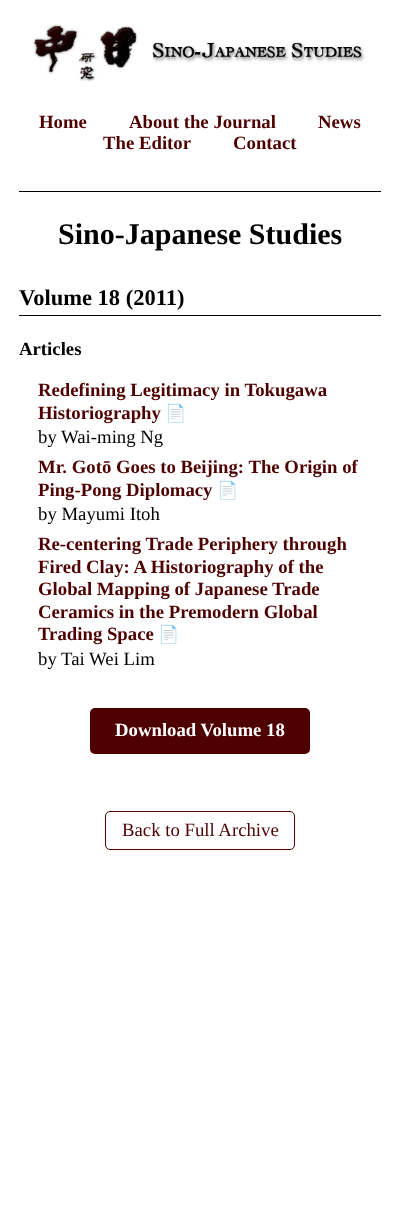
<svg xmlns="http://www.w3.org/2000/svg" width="399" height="1214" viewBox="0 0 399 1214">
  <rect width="100%" height="100%" fill="rgb(255,255,255)"/>
  <rect x="19" y="191" width="362" height="1" fill="rgb(0,0,0)"/>
  <image x="32" y="24" width="333" height="57" href="pic1.png"/>
  <g font-family="Liberation Serif" font-size="18.75" font-weight="bold" fill="rgb(78,0,0)">
    <text x="39" y="128">Home</text>
    <text x="129" y="128">About the Journal</text>
    <text x="318" y="128">News</text>
    <text x="103" y="149">The Editor</text>
    <text x="233" y="149">Contact</text>
  </g>
  <text x="58" y="244" font-family="Liberation Serif" font-size="30" font-weight="bold" fill="rgb(0,0,0)">Sino-Japanese Studies</text>
  <rect x="19" y="315" width="362" height="1" fill="rgb(0,0,0)"/>
  <text x="19" y="305" font-family="Liberation Serif" font-size="22.5" font-weight="bold" fill="rgb(0,0,0)">Volume 18 (2011)</text>
  <text x="19" y="355" font-family="Liberation Serif" font-size="18.75" font-weight="bold" fill="rgb(0,0,0)">Articles</text>
  <g font-family="Liberation Serif" font-size="18.75" font-weight="bold" fill="rgb(78,0,0)">
    <text>
      <tspan x="38" y="396">Redefining Legitimacy in Tokugawa</tspan>
      <tspan x="38" y="419">Historiography</tspan>
    </text>
  </g>
  <text x="165" y="419" font-family="Noto Color Emoji" font-size="17" font-weight="bold" fill="rgb(78,0,0)">📄</text>
  <text x="38" y="443" font-family="Liberation Serif" font-size="18.75" fill="rgb(0,0,0)">by Wai-ming Ng</text>
  <g font-family="Liberation Serif" font-size="18.75" font-weight="bold" fill="rgb(78,0,0)">
    <text>
      <tspan x="38" y="473">Mr. Gotō Goes to Beijing: The Origin of</tspan>
      <tspan x="38" y="496">Ping-Pong Diplomacy</tspan>
    </text>
  </g>
  <text x="217" y="496" font-family="Noto Color Emoji" font-size="17" font-weight="bold" fill="rgb(78,0,0)">📄</text>
  <text x="38" y="520" font-family="Liberation Serif" font-size="18.75" fill="rgb(0,0,0)">by Mayumi Itoh</text>
  <g font-family="Liberation Serif" font-size="18.75" font-weight="bold" fill="rgb(78,0,0)">
    <text>
      <tspan x="38" y="550">Re-centering Trade Periphery through</tspan>
      <tspan x="38" y="573">Fired Clay: A Historiography of the</tspan>
      <tspan x="38" y="595">Global Mapping of Japanese Trade</tspan>
      <tspan x="38" y="618">Ceramics in the Premodern Global</tspan>
      <tspan x="38" y="640">Trading Space</tspan>
    </text>
  </g>
  <text x="158" y="640" font-family="Noto Color Emoji" font-size="17" font-weight="bold" fill="rgb(78,0,0)">📄</text>
  <text x="38" y="665" font-family="Liberation Serif" font-size="18.75" fill="rgb(0,0,0)">by Tai Wei Lim</text>
  <rect x="90" y="708" width="220" height="46" rx="5" fill="rgb(78,0,0)"/>
  <text x="115" y="736" font-family="Liberation Serif" font-size="18.75" font-weight="bold" fill="rgb(255,255,255)">Download Volume 18</text>
  <rect x="105.5" y="811.5" width="189" height="38" rx="4.5" fill="none" stroke="rgb(78,0,0)"/>
  <text x="122" y="836" font-family="Liberation Serif" font-size="18.75" fill="rgb(78,0,0)">Back to Full Archive</text>
</svg>
